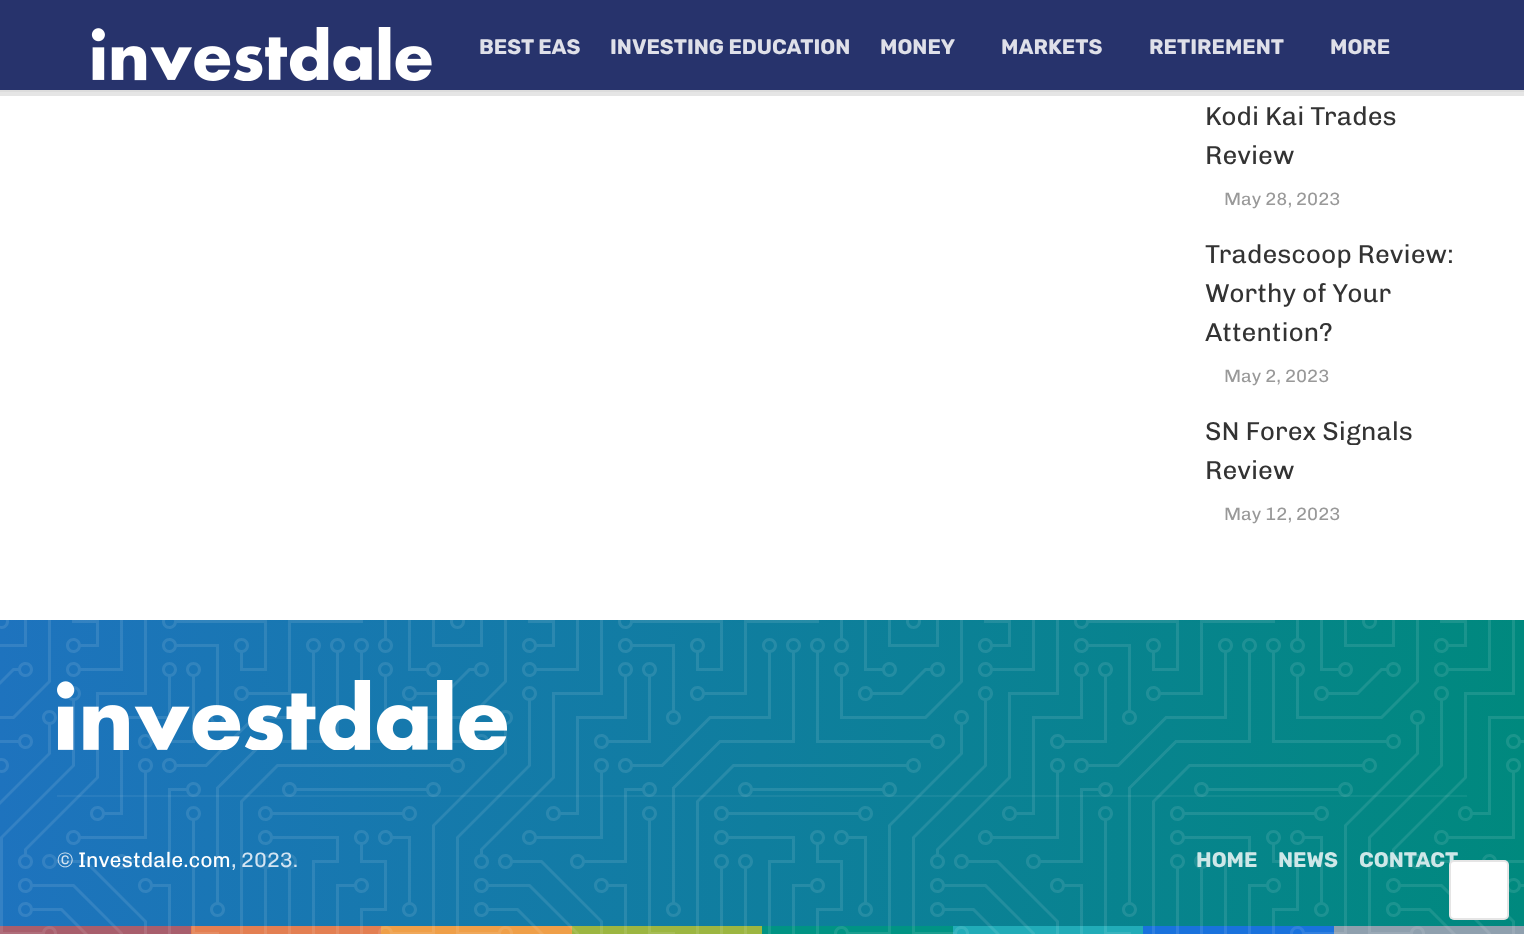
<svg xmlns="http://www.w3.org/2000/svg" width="1524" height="934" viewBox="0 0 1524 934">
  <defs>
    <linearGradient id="g1" gradientUnits="userSpaceOnUse" x1="0" y1="777" x2="1524" y2="777"><stop offset="0" stop-color="rgb(30,115,190)"/><stop offset="1" stop-color="rgb(0,137,126)"/></linearGradient>
  </defs>
  <rect width="100%" height="100%" fill="rgb(255,255,255)"/>
  <rect x="0" y="90" width="1524" height="2" fill="rgb(245,245,245)"/>
  <rect x="0" y="0" width="1524" height="90" fill="rgb(44,57,121)"/>
  <rect x="0" y="0" width="1524" height="96" fill="rgba(0,0,0,0.1)"/>
  <image x="91" y="27" width="341" height="54" href="pic1.png"/>
  <g font-family="Rubik" font-size="21" font-weight="bold" fill="rgb(223,224,233)">
    <text x="479" y="54">BEST EAS</text>
    <text x="610" y="54">INVESTING EDUCATION</text>
    <text x="880" y="54">MONEY</text>
    <text x="1001" y="54">MARKETS</text>
    <text x="1149" y="54">RETIREMENT</text>
    <text x="1330" y="54">MORE</text>
  </g>
  <g font-family="Chivo" font-size="26" fill="rgb(51,51,51)">
    <text>
      <tspan x="1205" y="125">Kodi Kai Trades</tspan>
      <tspan x="1205" y="164">Review</tspan>
    </text>
  </g>
  <text x="1224" y="205" font-family="Chivo" font-size="18" fill="rgb(153,153,153)">May 28, 2023</text>
  <g font-family="Chivo" font-size="26" fill="rgb(51,51,51)">
    <text>
      <tspan x="1205" y="263">Tradescoop Review:</tspan>
      <tspan x="1205" y="302">Worthy of Your</tspan>
      <tspan x="1205" y="341">Attention?</tspan>
    </text>
  </g>
  <text x="1224" y="382" font-family="Chivo" font-size="18" fill="rgb(153,153,153)">May 2, 2023</text>
  <g font-family="Chivo" font-size="26" fill="rgb(51,51,51)">
    <text>
      <tspan x="1205" y="440">SN Forex Signals</tspan>
      <tspan x="1205" y="479">Review</tspan>
    </text>
  </g>
  <text x="1224" y="520" font-family="Chivo" font-size="18" fill="rgb(153,153,153)">May 12, 2023</text>
  <rect x="0" y="620" width="1524" height="306" fill="url(#g1)"/>
  <rect x="0" y="926" width="191" height="8" fill="rgb(168,94,108)"/>
  <rect x="191" y="926" width="190" height="8" fill="rgb(227,127,82)"/>
  <rect x="381" y="926" width="191" height="8" fill="rgb(239,159,72)"/>
  <rect x="572" y="926" width="190" height="8" fill="rgb(156,182,65)"/>
  <rect x="762" y="926" width="191" height="8" fill="rgb(0,148,132)"/>
  <rect x="953" y="926" width="190" height="8" fill="rgb(33,172,184)"/>
  <rect x="1143" y="926" width="191" height="8" fill="rgb(25,114,221)"/>
  <rect x="1334" y="926" width="190" height="8" fill="rgb(143,160,174)"/>
  <image x="0" y="620" width="1524" height="314" href="pic2.png"/>
  <image x="57" y="680" width="450" height="70" href="pic3.png"/>
  <rect x="57" y="795" width="1410" height="2" fill="rgba(255,255,255,0.06)"/>
  <text x="57" y="867" font-family="Chivo" font-size="21" fill="rgb(211,228,242)">©</text>
  <text x="78" y="867" font-family="Chivo" font-size="21" fill="rgb(255,255,255)">Investdale.com</text>
  <text x="231" y="867" font-family="Chivo" font-size="21" fill="rgb(211,228,242)">, 2023.</text>
  <g font-family="Rubik" font-size="21" font-weight="bold" fill="rgb(206,231,232)">
    <text x="1196" y="867">HOME</text>
    <text x="1278" y="867">NEWS</text>
    <text x="1359" y="867">CONTACT</text>
  </g>
  <rect x="1449" y="860" width="60" height="60" rx="5" fill="rgb(255,255,255)"/>
  <rect x="1450" y="861" width="58" height="58" rx="4" fill="none" stroke="rgba(0,0,0,0.1)" stroke-width="2"/>
</svg>
